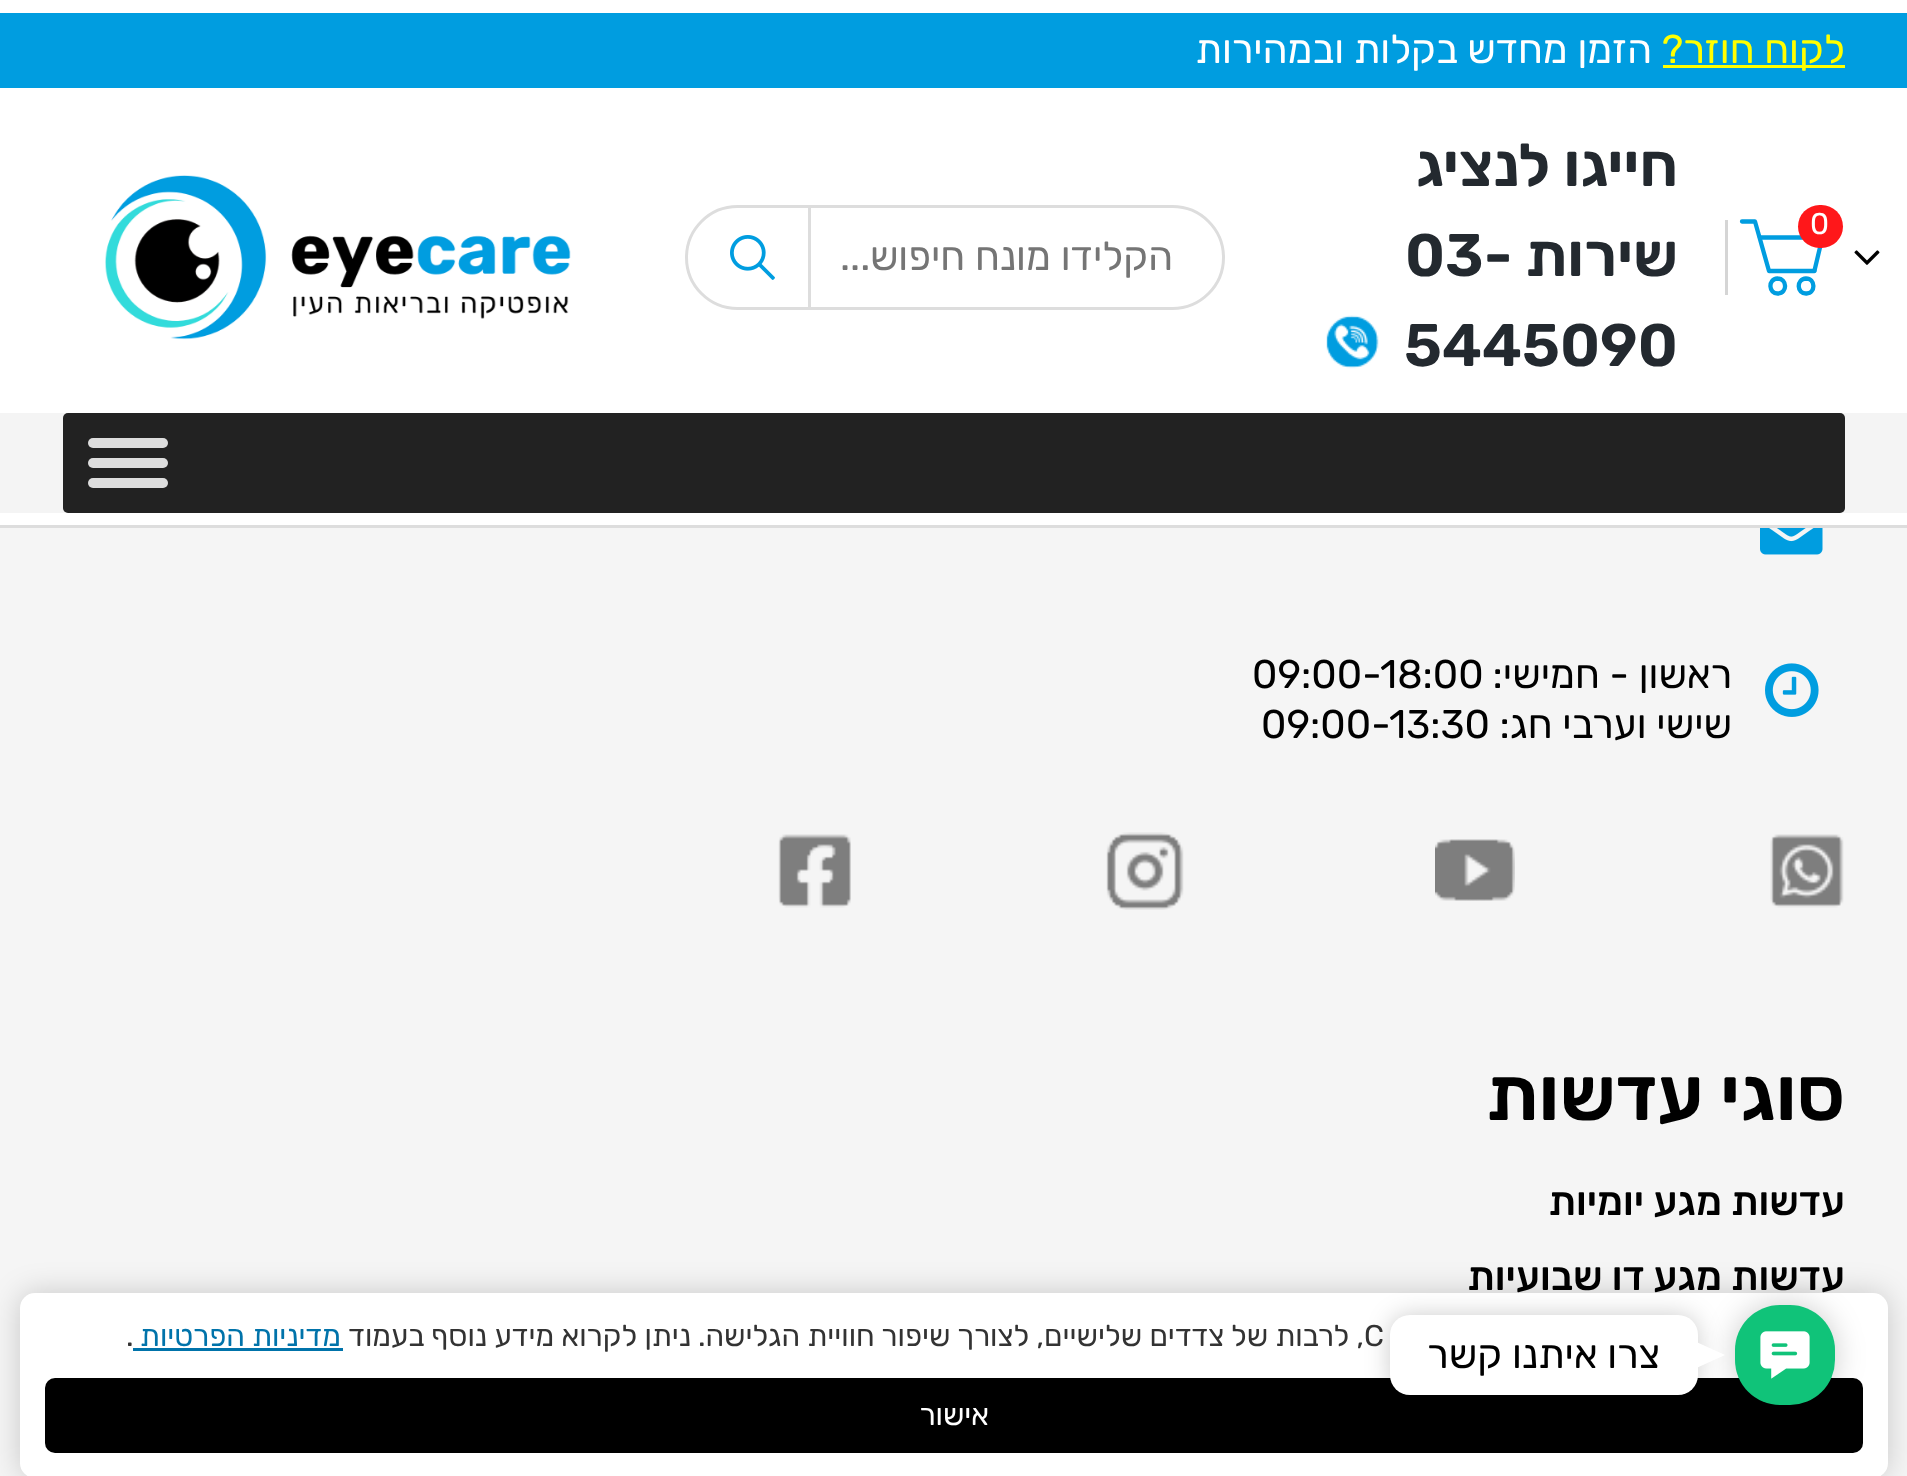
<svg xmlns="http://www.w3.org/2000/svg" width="1907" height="1476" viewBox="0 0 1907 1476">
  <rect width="100%" height="100%" fill="rgb(245,245,245)"/>
  <rect x="0" y="0" width="1907" height="525" fill="rgb(255,255,255)"/>
  <rect x="0" y="525" width="1907" height="3" fill="rgb(221,221,221)"/>
  <rect x="0" y="13" width="1907" height="75" fill="rgb(0,157,224)"/>
  <rect x="1663" y="65" width="182" height="3" fill="rgb(255,255,0)"/>
  <text x="1845" y="63" font-family="Rubik" font-size="40" font-weight="300" direction="rtl" fill="rgb(255,255,0)">לקוח חוזר?</text>
  <text x="1652" y="63" font-family="Rubik" font-size="40" font-weight="300" direction="rtl" fill="rgb(255,255,255)">הזמן מחדש בקלות ובמהירות</text>
  <path d="M1742 221.5H1755L1769 271H1814.5" fill="none" stroke="rgb(0,157,224)" stroke-width="4.3" stroke-linecap="round" stroke-linejoin="round"/>
  <path d="M1814.5 270.5L1822 239" fill="none" stroke="rgb(0,157,224)" stroke-width="4.3" stroke-linecap="round" stroke-linejoin="round"/>
  <path d="M1760 237.5H1825.5" fill="none" stroke="rgb(0,157,224)" stroke-width="4.3" stroke-linecap="round" stroke-linejoin="round"/>
  <rect x="1798" y="205" width="45" height="43" rx="21.5" fill="rgb(255,23,26)"/>
  <text x="1810" y="234" font-family="Rubik" font-size="30" font-weight="300" fill="rgb(255,255,255)">0</text>
  <image x="1854" y="250" width="26" height="15" href="pic1.png"/>
  <path d="M1777.5 278.5C1787 278.5 1788 293 1778 293.5C1768.5 294 1767.5 279 1777.5 278.5ZM1806 278.5C1815.5 278.5 1816 293 1806.5 293.5C1796.5 294 1796 279 1806 278.5Z" fill="none" stroke="rgb(0,157,224)" stroke-width="4.3" stroke-linecap="round" stroke-linejoin="round"/>
  <rect x="1725" y="220" width="3" height="75" fill="rgb(213,213,213)"/>
  <g font-family="Rubik" font-size="60" font-weight="600" direction="rtl" fill="rgb(35,41,47)">
    <text>
      <tspan x="1678" y="186">חייגו לנציג</tspan>
      <tspan x="1678" y="276">שירות</tspan>
    </text>
  </g>
  <g font-family="Rubik" font-size="60" font-weight="600" fill="rgb(35,41,47)">
    <text x="1405" y="276">03-</text>
    <text x="1404" y="366">5445090</text>
  </g>
  <image x="1326" y="315" width="53" height="54" href="pic2.png"/>
  <rect x="686.5" y="206.5" width="537" height="102" rx="51" fill="none" stroke="rgb(221,221,221)" stroke-width="3"/>
  <text x="1173" y="270" font-family="Rubik" font-size="40" font-weight="300" direction="rtl" fill="rgb(117,117,117)">הקלידו מונח חיפוש...</text>
  <rect x="808" y="205" width="3" height="105" fill="rgb(221,221,221)"/>
  <image x="730" y="235" width="45" height="45" href="pic3.png"/>
  <image x="105" y="175" width="466" height="165" href="pic4.png"/>
  <rect x="0" y="413" width="1907" height="100" fill="rgb(244,244,244)"/>
  <rect x="63" y="413" width="1782" height="100" rx="5" fill="rgb(34,34,34)"/>
  <rect x="88" y="438" width="80" height="10" rx="5" fill="rgb(221,221,221)"/>
  <rect x="88" y="458" width="80" height="10" rx="5" fill="rgb(221,221,221)"/>
  <rect x="88" y="478" width="80" height="10" rx="5" fill="rgb(221,221,221)"/>
  <image x="1760" y="528" width="63" height="27" href="pic5.png"/>
  <image x="1765" y="663" width="54" height="54" href="pic6.png"/>
  <text x="1732" y="688" font-family="Rubik" font-size="40" font-weight="300" direction="rtl" fill="rgb(0,0,0)">ראשון - חמישי:</text>
  <text x="1252" y="688" font-family="Rubik" font-size="40" font-weight="300" fill="rgb(0,0,0)">09:00-18:00</text>
  <text x="1732" y="738" font-family="Rubik" font-size="40" font-weight="300" direction="rtl" fill="rgb(0,0,0)">שישי וערבי חג:</text>
  <text x="1261" y="738" font-family="Rubik" font-size="40" font-weight="300" fill="rgb(0,0,0)">09:00-13:30</text>
  <image x="1770" y="834" width="74" height="74" href="pic7.png"/>
  <image x="1435" y="839" width="80" height="62" href="pic8.png"/>
  <image x="1106" y="832" width="78" height="78" href="pic9.png"/>
  <image x="778" y="834" width="73" height="74" href="pic10.png"/>
  <text x="1845" y="1120" font-family="Rubik" font-size="75" font-weight="600" direction="rtl" fill="rgb(0,0,0)">סוגי עדשות</text>
  <g font-family="'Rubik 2'" font-size="40" font-weight="300" direction="rtl" fill="rgb(0,0,0)">
    <text>
      <tspan x="1845" y="1215">עדשות מגע יומיות</tspan>
      <tspan x="1845" y="1290">עדשות מגע דו שבועיות</tspan>
    </text>
  </g>
  <rect x="20" y="1293" width="1868" height="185" rx="15" fill="rgba(0,0,0,0.18)" filter="blur(15px)"/>
  <rect x="20" y="1293" width="1868" height="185" rx="15" fill="rgb(255,255,255)"/>
  <rect x="45" y="1378" width="1818" height="75" rx="10" fill="rgb(0,0,0)"/>
  <rect x="1735" y="1305" width="100" height="100" rx="45" fill="rgba(0,0,0,0.2)" filter="blur(15px)"/>
  <rect x="1735" y="1305" width="100" height="100" rx="45" fill="rgb(16,195,121)"/>
  <image x="1760" y="1331" width="50" height="48" href="pic11.png"/>
  <rect x="1390" y="1315" width="308" height="80" rx="20" fill="rgba(0,0,0,0.2)" filter="blur(12.5px)"/>
  <rect x="1390" y="1315" width="308" height="80" rx="20" fill="rgb(255,255,255)"/>
  <path d="M1697.5 1367.5V1342.5L1725 1355Z" fill="rgb(255,255,255)"/>
  <text x="1660" y="1368" font-family="Rubik" font-size="40" font-weight="300" direction="rtl" fill="rgb(0,0,0)">צרו איתנו קשר</text>
  <text x="1364" y="1346" font-family="Rubik" font-size="30" font-weight="300" fill="rgb(51,51,51)">C</text>
  <g font-family="Rubik" font-size="30" font-weight="300" direction="rtl" fill="rgb(51,51,51)">
    <text x="1364" y="1346">, לרבות של צדדים שלישיים, לצורך שיפור חוויית הגלישה.</text>
    <text x="691" y="1346">ניתן לקרוא מידע נוסף בעמוד</text>
  </g>
  <text x="341" y="1346" font-family="Rubik" font-size="30" font-weight="300" direction="rtl" fill="rgb(0,115,170)">מדיניות הפרטיות</text>
  <rect x="133" y="1348" width="210" height="3" fill="rgb(0,115,170)"/>
  <text x="126" y="1346" font-family="Rubik" font-size="30" font-weight="300" fill="rgb(51,51,51)">.</text>
  <text x="989" y="1425" font-family="Rubik" font-size="30" font-weight="300" direction="rtl" fill="rgb(255,255,255)">אישור</text>
</svg>
